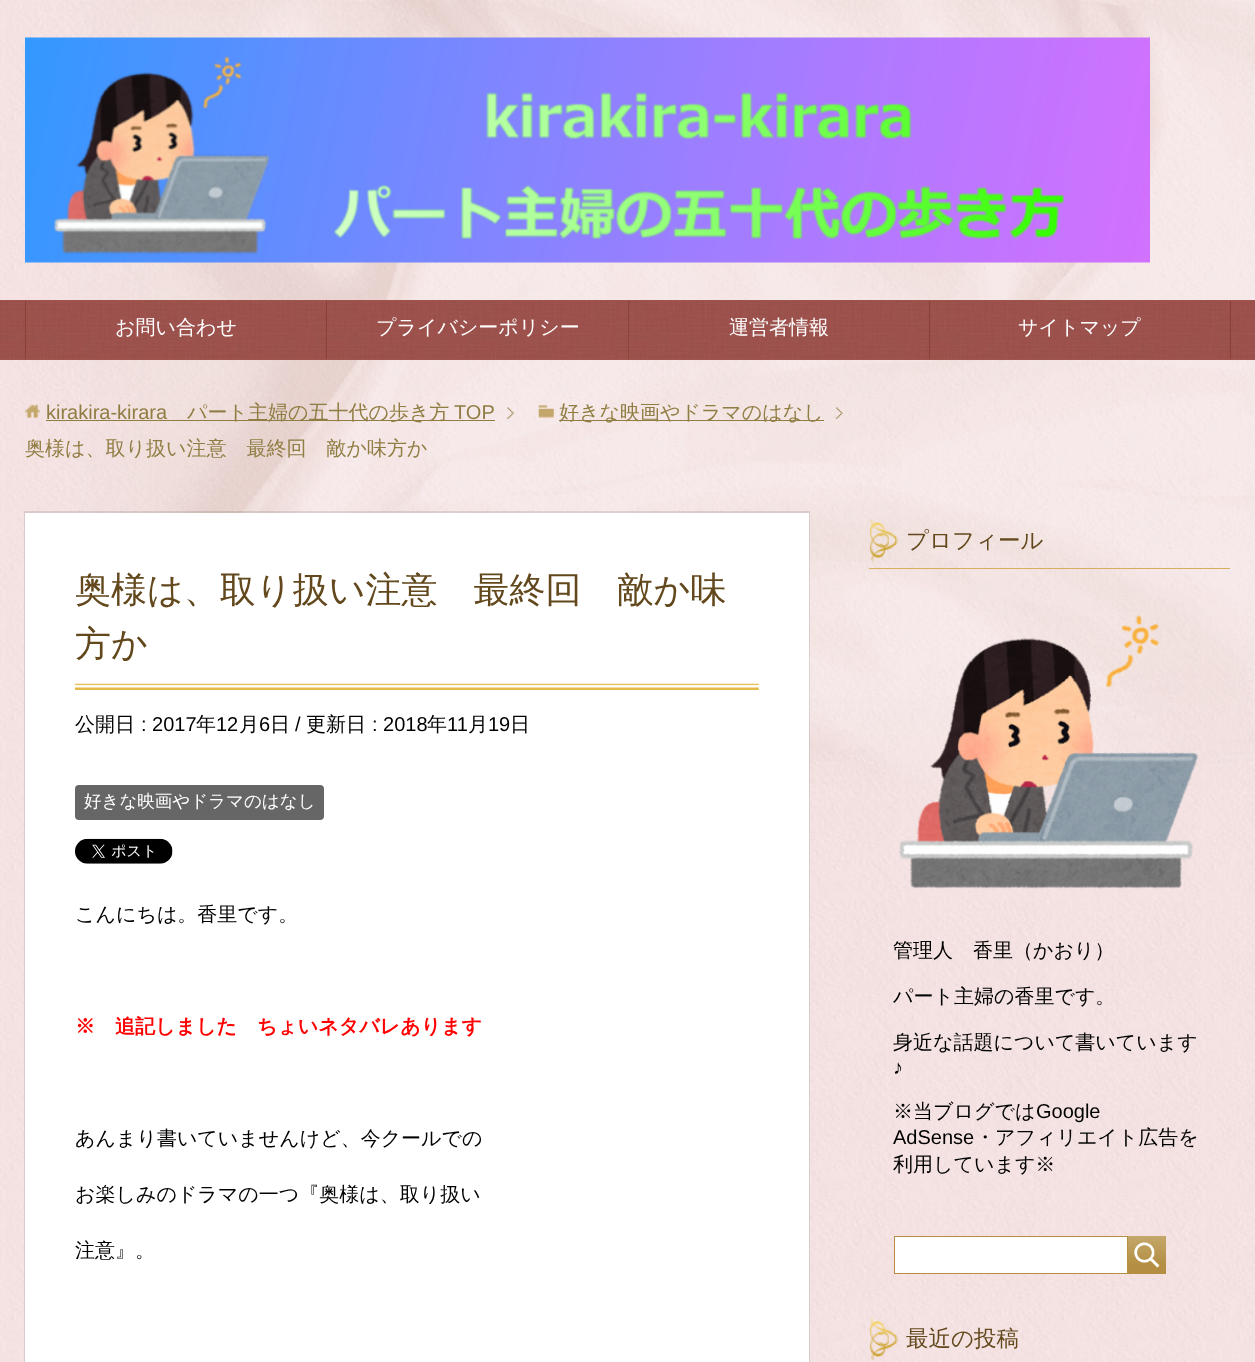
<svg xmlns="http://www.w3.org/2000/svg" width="1255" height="1362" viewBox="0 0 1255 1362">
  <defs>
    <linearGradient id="g1" gradientUnits="userSpaceOnUse" x1="1147" y1="1236" x2="1147" y2="1274"><stop offset="0" stop-color="rgb(196,167,107)"/><stop offset="0.75" stop-color="rgb(180,143,67)"/></linearGradient>
  </defs>
  <rect width="100%" height="100%" fill="rgb(255,255,255)"/>
  <image x="0" y="0" width="1255" height="1362" href="pic1.png"/>
  <image x="75" y="0" width="1180" height="789" href="pic2.png"/>
  <image x="25" y="37" width="1125" height="226" href="pic3.png"/>
  <image x="0" y="301" width="1255" height="58" href="pic4.png"/>
  <rect x="0" y="300" width="1255" height="1" fill="rgb(160,84,78)"/>
  <rect x="0" y="359" width="1255" height="1" fill="rgb(160,84,78)"/>
  <rect x="25" y="301" width="1" height="58" fill="rgb(137,63,56)"/>
  <rect x="26" y="301" width="302" height="58" fill="rgb(160,84,78)"/>
  <image x="26" y="301" width="302" height="58" href="pic5.png"/>
  <rect x="326" y="301" width="1" height="58" fill="rgb(137,63,56)"/>
  <text x="115" y="334" font-family="WenQuanYi Zen Hei" font-size="20" font-weight="500" fill="rgb(255,255,255)">お問い合わせ</text>
  <image x="328" y="301" width="300" height="58" href="pic6.png"/>
  <rect x="628" y="301" width="1" height="58" fill="rgb(137,63,56)"/>
  <text x="376" y="334" font-family="WenQuanYi Zen Hei" font-size="20" font-weight="500" fill="rgb(255,255,255)">プライバシーポリシー</text>
  <image x="628" y="301" width="301" height="58" href="pic7.png"/>
  <rect x="929" y="301" width="1" height="58" fill="rgb(137,63,56)"/>
  <text x="729" y="334" font-family="WenQuanYi Zen Hei" font-size="20" font-weight="500" fill="rgb(255,255,255)">運営者情報</text>
  <image x="930" y="301" width="300" height="58" href="pic8.png"/>
  <rect x="1230" y="301" width="1" height="58" fill="rgb(137,63,56)"/>
  <text x="1018" y="334" font-family="WenQuanYi Zen Hei" font-size="20" font-weight="500" fill="rgb(255,255,255)">サイトマップ</text>
  <image x="507" y="407" width="7" height="12" href="pic9.png"/>
  <image x="25" y="404" width="15" height="15" href="pic10.png"/>
  <text x="46" y="419" font-family="Liberation Sans" font-size="20" fill="rgb(144,125,67)">kirakira-kirara</text>
  <rect x="46" y="420" width="449" height="1" fill="rgb(144,125,67)"/>
  <text x="187" y="419" font-family="WenQuanYi Zen Hei" font-size="20" font-weight="500" fill="rgb(144,125,67)">パート主婦の五十代の歩き方</text>
  <text x="454" y="419" font-family="Liberation Sans" font-size="20" fill="rgb(144,125,67)">TOP</text>
  <image x="836" y="407" width="7" height="12" href="pic11.png"/>
  <image x="538" y="404" width="16" height="14" href="pic12.png"/>
  <rect x="559" y="420" width="265" height="1" fill="rgb(144,125,67)"/>
  <g font-family="WenQuanYi Zen Hei" font-size="20" font-weight="500" fill="rgb(144,125,67)">
    <text x="559" y="419">好きな映画やドラマのはなし</text>
    <text x="25" y="455">奥様は、取り扱い注意　最終回　敵か味方か</text>
  </g>
  <rect x="24" y="511" width="786" height="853" fill="rgba(0,0,0,0.1)" filter="blur(0.5px)"/>
  <rect x="25" y="513" width="784" height="849" fill="rgb(255,255,255)"/>
  <image x="75" y="683" width="684" height="7" href="pic13.png"/>
  <g font-family="WenQuanYi Zen Hei" font-size="36" font-weight="500" fill="rgb(98,72,28)">
    <text>
      <tspan x="75" y="602">奥様は、取り扱い注意　最終回　敵か味</tspan>
      <tspan x="75" y="656">方か</tspan>
    </text>
  </g>
  <text x="75" y="731" font-family="WenQuanYi Zen Hei" font-size="20" font-weight="500" fill="rgb(0,0,0)">公開日</text>
  <text x="141" y="731" font-family="Liberation Sans" font-size="20" fill="rgb(0,0,0)">: 2017</text>
  <text x="196" y="731" font-family="WenQuanYi Zen Hei" font-size="20" font-weight="500" fill="rgb(0,0,0)">年</text>
  <text x="216" y="731" font-family="Liberation Sans" font-size="20" fill="rgb(0,0,0)">12</text>
  <text x="239" y="731" font-family="WenQuanYi Zen Hei" font-size="20" font-weight="500" fill="rgb(0,0,0)">月</text>
  <text x="259" y="731" font-family="Liberation Sans" font-size="20" fill="rgb(0,0,0)">6</text>
  <text x="270" y="731" font-family="WenQuanYi Zen Hei" font-size="20" font-weight="500" fill="rgb(0,0,0)">日</text>
  <text x="295" y="731" font-family="Liberation Sans" font-size="20" fill="rgb(0,0,0)">/</text>
  <text x="306" y="731" font-family="WenQuanYi Zen Hei" font-size="20" font-weight="500" fill="rgb(0,0,0)">更新日</text>
  <text x="372" y="731" font-family="Liberation Sans" font-size="20" fill="rgb(0,0,0)">: 2018</text>
  <text x="427" y="731" font-family="WenQuanYi Zen Hei" font-size="20" font-weight="500" fill="rgb(0,0,0)">年</text>
  <text x="447" y="731" font-family="Liberation Sans" font-size="20" fill="rgb(0,0,0)">11</text>
  <text x="468" y="731" font-family="WenQuanYi Zen Hei" font-size="20" font-weight="500" fill="rgb(0,0,0)">月</text>
  <text x="488" y="731" font-family="Liberation Sans" font-size="20" fill="rgb(0,0,0)">19</text>
  <text x="510" y="731" font-family="WenQuanYi Zen Hei" font-size="20" font-weight="500" fill="rgb(0,0,0)">日</text>
  <rect x="75" y="785" width="249" height="35" rx="4" fill="rgb(102,102,102)"/>
  <text x="84" y="807" font-family="WenQuanYi Zen Hei" font-size="17.5" font-weight="500" fill="rgb(255,255,255)">好きな映画やドラマのはなし</text>
  <image x="75" y="838" width="98" height="26" href="pic14.png"/>
  <text x="75" y="921" font-family="WenQuanYi Zen Hei" font-size="20" font-weight="500" fill="rgb(0,0,0)">こんにちは。香里です。</text>
  <text x="75" y="1033" font-family="WenQuanYi Zen Hei" font-size="20" font-weight="bold" fill="rgb(255,0,0)">※　追記しました　ちょいネタバレあります</text>
  <g font-family="WenQuanYi Zen Hei" font-size="20" font-weight="500" fill="rgb(0,0,0)">
    <text x="75" y="1145">あんまり書いていませんけど、今クールでの</text>
    <text x="75" y="1201">お楽しみのドラマの一つ『奥様は、取り扱い</text>
    <text x="75" y="1257">注意』。</text>
  </g>
  <image x="869" y="518" width="29" height="44" href="pic15.png"/>
  <rect x="869" y="568" width="361" height="1" fill="rgb(213,174,96)"/>
  <text x="906" y="548" font-family="WenQuanYi Zen Hei" font-size="22.5" font-weight="500" fill="rgb(98,72,28)">プロフィール</text>
  <image x="899" y="615" width="299" height="274" href="pic16.png"/>
  <g font-family="WenQuanYi Zen Hei" font-size="20" font-weight="500" fill="rgb(0,0,0)">
    <text x="893" y="957">管理人　香里（かおり）</text>
    <text x="893" y="1003">パート主婦の香里です。</text>
    <text x="893" y="1049">身近な話題について書いています</text>
  </g>
  <text x="893" y="1074" font-family="Liberation Sans" font-size="20" fill="rgb(0,0,0)">♪</text>
  <text x="893" y="1118" font-family="WenQuanYi Zen Hei" font-size="20" font-weight="500" fill="rgb(0,0,0)">※当ブログでは</text>
  <g font-family="Liberation Sans" font-size="20" fill="rgb(0,0,0)">
    <text x="1036" y="1118">Google</text>
    <text x="893" y="1144">AdSense</text>
  </g>
  <g font-family="WenQuanYi Zen Hei" font-size="20" font-weight="500" fill="rgb(0,0,0)">
    <text x="975" y="1144">・アフィリエイト広告を</text>
    <text x="893" y="1171">利用しています※</text>
  </g>
  <rect x="894.5" y="1236.5" width="233" height="37" fill="rgb(255,255,255)" stroke="rgb(180,143,67)"/>
  <rect x="1128" y="1236" width="38" height="38" fill="url(#g1)"/>
  <image x="1134" y="1242" width="26" height="26" href="pic17.png"/>
  <image x="869" y="1317" width="29" height="43" href="pic18.png"/>
  <text x="906" y="1346" font-family="WenQuanYi Zen Hei" font-size="22.5" font-weight="500" fill="rgb(98,72,28)">最近の投稿</text>
</svg>
